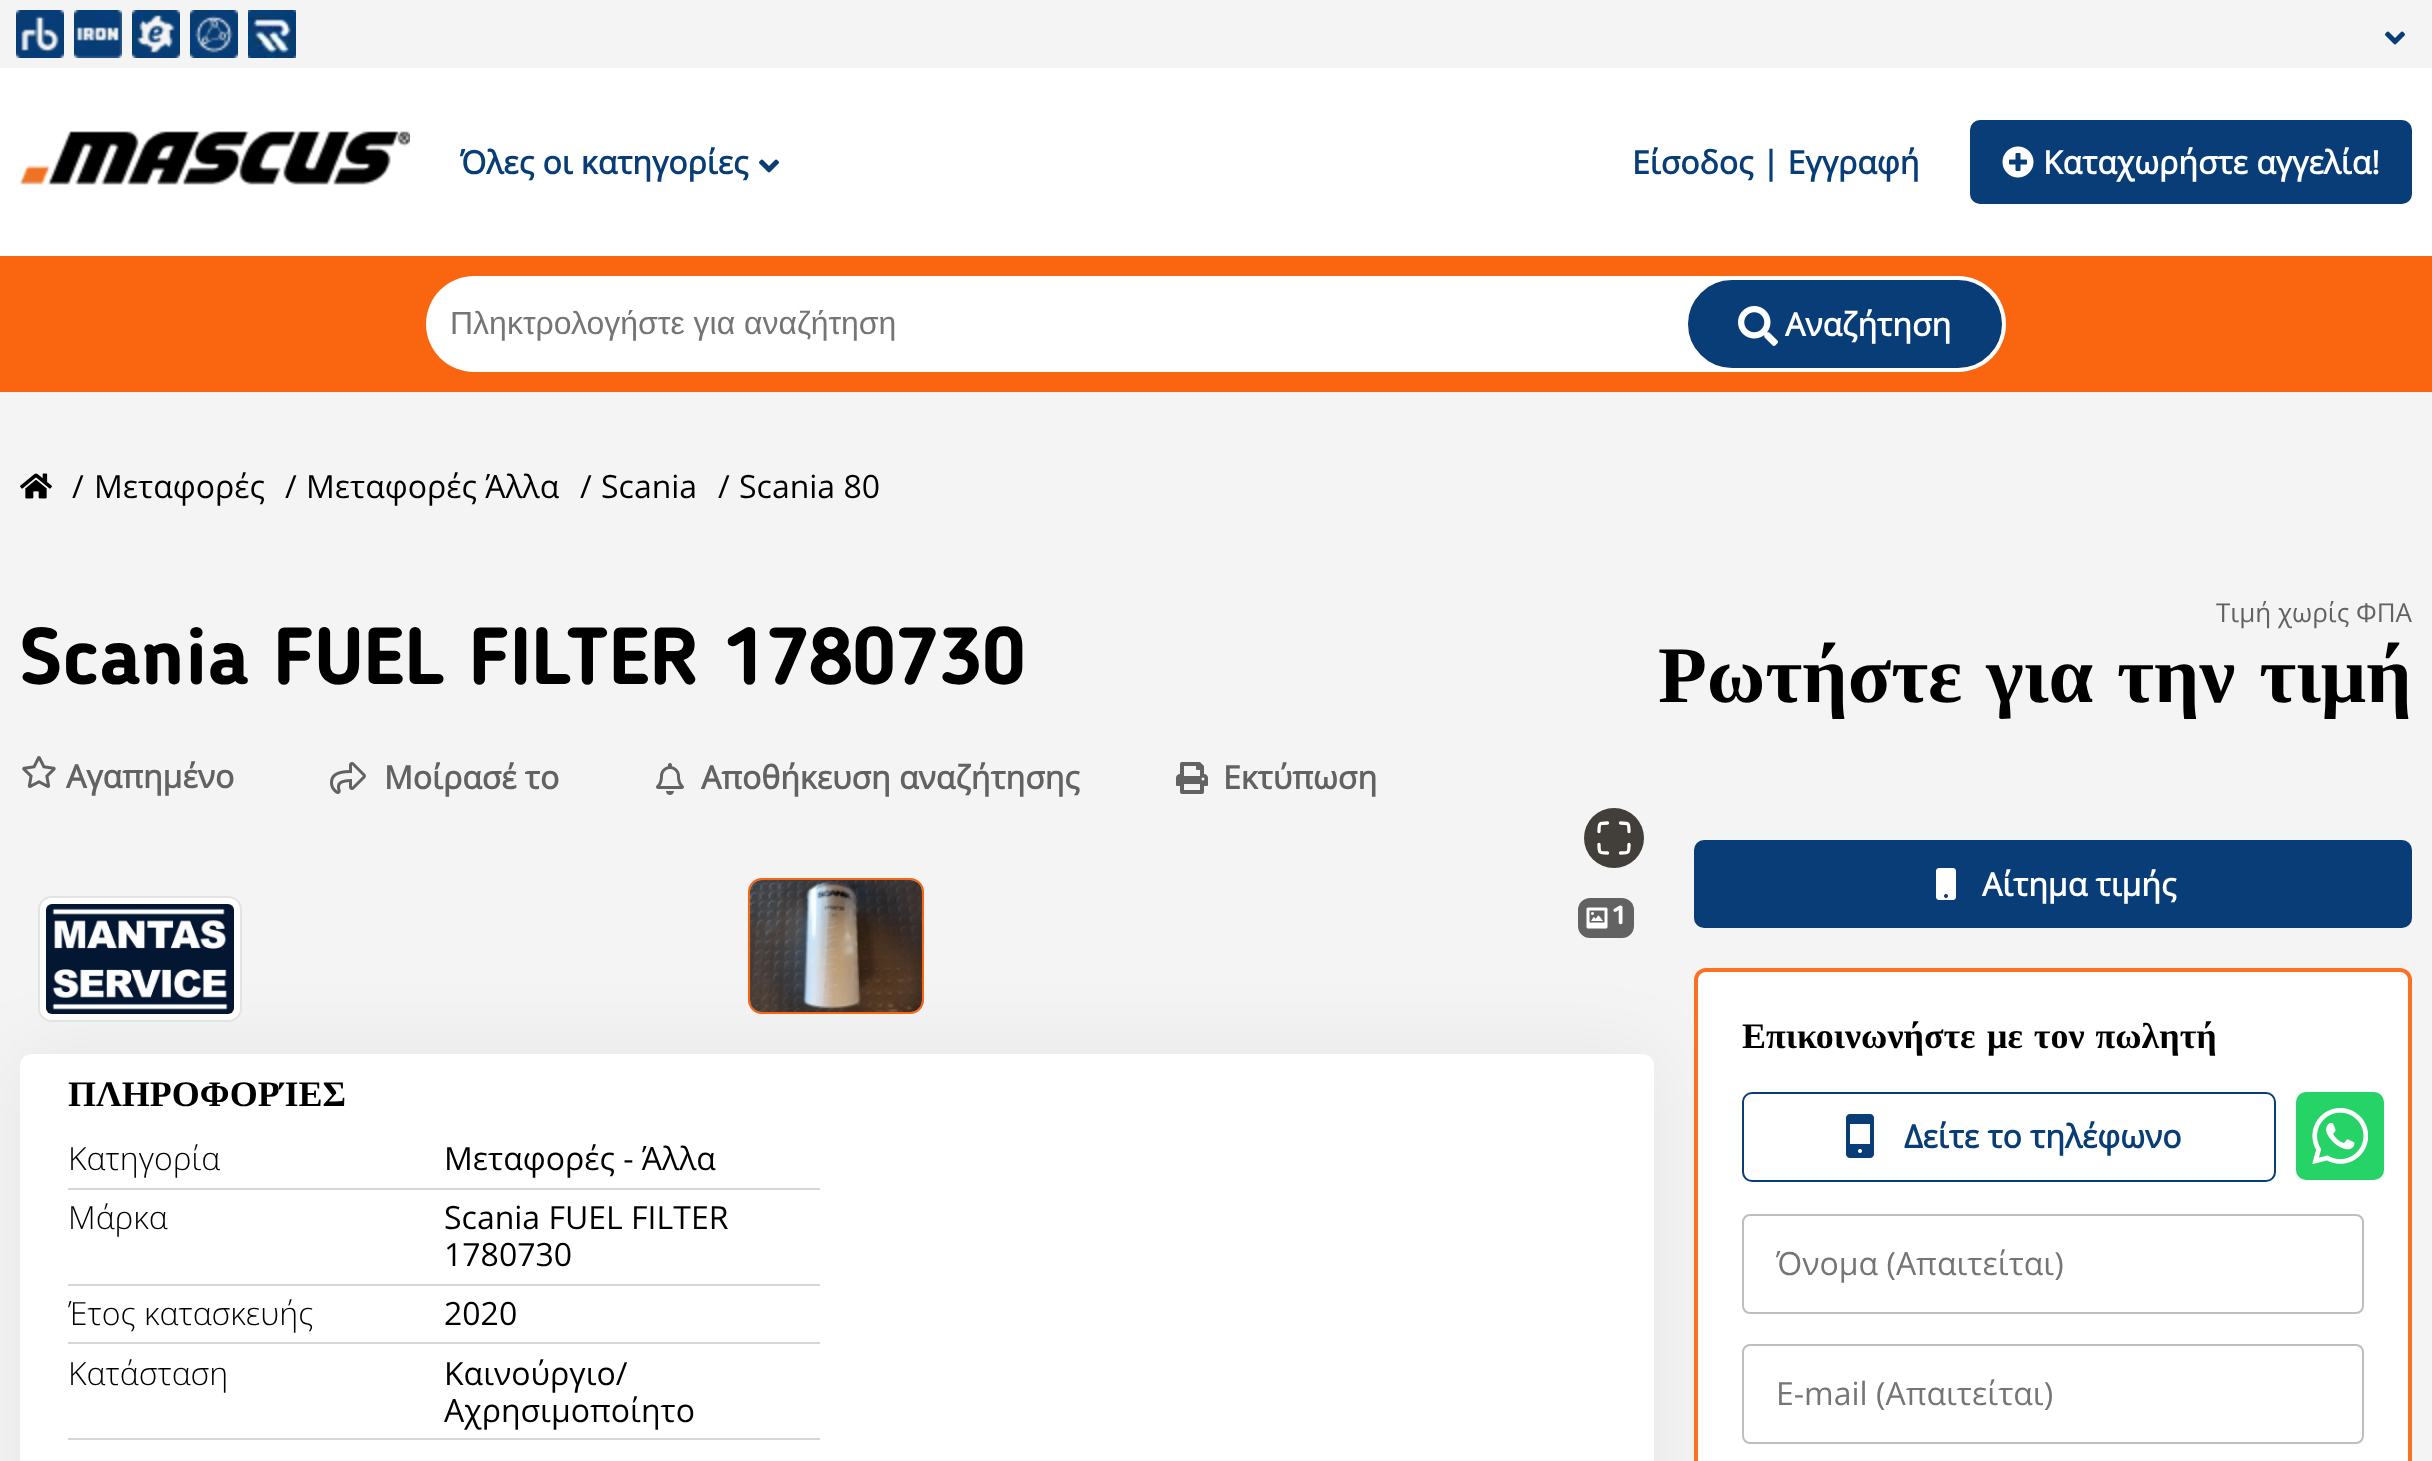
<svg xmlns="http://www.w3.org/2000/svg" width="2432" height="1461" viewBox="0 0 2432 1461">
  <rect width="100%" height="100%" fill="rgb(244,244,244)"/>
  <image x="16" y="10" width="48" height="48" href="pic1.png"/>
  <image x="74" y="10" width="48" height="48" href="pic2.png"/>
  <image x="132" y="10" width="48" height="48" href="pic3.png"/>
  <image x="190" y="10" width="48" height="48" href="pic4.png"/>
  <image x="248" y="10" width="48" height="48" href="pic5.png"/>
  <image x="2385" y="31" width="20" height="14" href="pic6.png"/>
  <rect x="0" y="68" width="2432" height="188" fill="rgb(255,255,255)"/>
  <image x="20" y="131" width="390" height="54" href="pic7.png"/>
  <text x="460" y="174" font-family="Open Sans" font-size="32" font-weight="bold" fill="rgb(8,61,119)">Όλες οι κατηγορίες</text>
  <image x="759" y="159" width="20" height="14" href="pic8.png"/>
  <text x="1632" y="174" font-family="Open Sans" font-size="32" font-weight="bold" fill="rgb(8,61,119)">Είσοδος | Εγγραφή</text>
  <rect x="1971" y="121" width="440" height="82" rx="9" fill="rgb(8,61,119)" stroke="rgb(8,61,119)" stroke-width="2"/>
  <image x="2002" y="146" width="32" height="32" href="pic9.png"/>
  <text x="2043" y="174" font-family="Open Sans" font-size="32" font-weight="bold" fill="rgb(255,255,255)">Καταχωρήστε αγγελία!</text>
  <rect x="0" y="256" width="2432" height="136" fill="rgb(250,101,15)"/>
  <rect x="426" y="276" width="1580" height="96" rx="48" fill="rgb(255,255,255)"/>
  <text x="450" y="334" font-family="Liberation Sans" font-size="32" fill="rgb(117,117,117)">Πληκτρολογήστε για αναζήτηση</text>
  <rect x="1689" y="281" width="312" height="86" rx="43" fill="rgb(8,61,119)" stroke="rgb(8,61,119)" stroke-width="2"/>
  <image x="1738" y="306" width="40" height="40" href="pic10.png"/>
  <text x="1785" y="336" font-family="Open Sans" font-size="32" font-weight="bold" fill="rgb(255,255,255)">Αναζήτηση</text>
  <image x="20" y="473" width="32" height="26" href="pic11.png"/>
  <g font-family="Open Sans" font-size="32" fill="rgb(0,0,0)">
    <text x="72" y="498">/</text>
    <text x="94" y="498">Μεταφορές</text>
    <text x="285" y="498">/</text>
    <text x="306" y="498">Μεταφορές Άλλα</text>
    <text x="580" y="498">/</text>
    <text x="601" y="498">Scania</text>
    <text x="718" y="498">/</text>
    <text x="739" y="498">Scania 80</text>
  </g>
  <text x="20" y="684" font-family="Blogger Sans" font-size="80" font-weight="bold" fill="rgb(0,0,0)">Scania FUEL FILTER 1780730</text>
  <text x="2216" y="622" font-family="Open Sans" font-size="26" fill="rgb(98,98,98)">Τιμή χωρίς ΦΠΑ</text>
  <text x="1658" y="702" word-spacing="4" font-family="Liberation Serif" font-size="80" font-weight="bold" fill="rgb(0,0,0)">Ρωτήστε για την τιμή</text>
  <image x="22" y="756" width="34" height="32" href="pic12.png"/>
  <text x="66" y="788" font-family="Open Sans" font-size="32" font-weight="bold" fill="rgb(98,98,98)">Αγαπημένο</text>
  <image x="330" y="762" width="36" height="32" href="pic13.png"/>
  <text x="384" y="789" font-family="Open Sans" font-size="32" font-weight="bold" fill="rgb(98,98,98)">Μοίρασέ το</text>
  <image x="656" y="763" width="28" height="32" href="pic14.png"/>
  <text x="701" y="789" font-family="Open Sans" font-size="32" font-weight="bold" fill="rgb(98,98,98)">Αποθήκευση αναζήτησης</text>
  <image x="1176" y="762" width="32" height="32" href="pic15.png"/>
  <text x="1223" y="789" font-family="Open Sans" font-size="32" font-weight="bold" fill="rgb(98,98,98)">Εκτύπωση</text>
  <rect x="20" y="1054" width="1634" height="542" rx="12" fill="rgba(0,0,0,0.06)" filter="blur(41px)"/>
  <rect x="749" y="879" width="174" height="134" rx="13" fill="none" stroke="rgb(250,101,15)" stroke-width="2"/>
  <image x="750" y="880" width="172" height="132" href="pic16.png"/>
  <circle cx="1614" cy="838" r="30" fill="rgb(66,63,59)"/>
  <path d="M1607.5 823C1599 823 1599 823 1599 831.5M1629 831.5C1629 823 1629 823 1620.5 823M1620.5 853C1629 853 1629 853 1629 844.5M1599 844.5C1599 853 1599 853 1607.5 853" fill="none" stroke="rgb(255,255,255)" stroke-width="3.3" stroke-linecap="round" stroke-linejoin="round"/>
  <rect x="39" y="897" width="202" height="124" rx="13" fill="none" stroke="rgb(227,227,227)" stroke-width="2"/>
  <rect x="40" y="898" width="200" height="122" rx="12" fill="rgb(255,255,255)"/>
  <image x="46" y="904" width="188" height="110" href="pic17.png"/>
  <rect x="1578" y="898" width="56" height="40" rx="12" fill="rgb(98,98,98)"/>
  <image x="1586" y="907" width="22" height="22" href="pic18.png"/>
  <text x="1612" y="924" font-family="Blogger Sans" font-size="26" font-weight="bold" fill="rgb(255,255,255)">1</text>
  <rect x="20" y="1054" width="1634" height="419" rx="12" fill="rgb(255,255,255)"/>
  <text x="68" y="1106" font-family="Liberation Serif" font-size="36" font-weight="bold" fill="rgb(0,0,0)">ΠΛΗΡΟΦΟΡΊΕΣ</text>
  <rect x="68" y="1188" width="752" height="2" fill="rgb(214,214,214)"/>
  <text x="68" y="1170" font-family="Open Sans" font-size="32" font-weight="300" fill="rgb(0,0,0)">Κατηγορία</text>
  <text x="444" y="1170" font-family="Open Sans" font-size="32" fill="rgb(0,0,0)">Μεταφορές - Άλλα</text>
  <rect x="68" y="1284" width="752" height="2" fill="rgb(214,214,214)"/>
  <text x="68" y="1229" font-family="Open Sans" font-size="32" font-weight="300" fill="rgb(0,0,0)">Μάρκα</text>
  <g font-family="Open Sans" font-size="32" fill="rgb(0,0,0)">
    <text>
      <tspan x="444" y="1229">Scania FUEL FILTER</tspan>
      <tspan x="444" y="1266">1780730</tspan>
    </text>
  </g>
  <rect x="68" y="1342" width="752" height="2" fill="rgb(214,214,214)"/>
  <text x="68" y="1325" font-family="Open Sans" font-size="32" font-weight="300" fill="rgb(0,0,0)">Έτος κατασκευής</text>
  <text x="444" y="1325" font-family="Open Sans" font-size="32" fill="rgb(0,0,0)">2020</text>
  <rect x="68" y="1438" width="752" height="2" fill="rgb(214,214,214)"/>
  <text x="68" y="1385" font-family="Open Sans" font-size="32" font-weight="300" fill="rgb(0,0,0)">Κατάσταση</text>
  <g font-family="Open Sans" font-size="32" fill="rgb(0,0,0)">
    <text>
      <tspan x="444" y="1385">Καινούργιο/</tspan>
      <tspan x="444" y="1422">Αχρησιμοποίητο</tspan>
    </text>
  </g>
  <rect x="1695" y="841" width="716" height="86" rx="9" fill="rgb(8,61,119)" stroke="rgb(8,61,119)" stroke-width="2"/>
  <image x="1936" y="868" width="20" height="32" href="pic19.png"/>
  <text x="1982" y="896" font-family="Open Sans" font-size="32" font-weight="bold" fill="rgb(255,255,255)">Αίτημα τιμής</text>
  <rect x="1696" y="970" width="714" height="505" rx="10" fill="rgb(255,255,255)" stroke="rgb(251,113,33)" stroke-width="4"/>
  <g font-family="Liberation Serif" font-size="36" font-weight="bold" fill="rgb(0,0,0)">
    <text x="1742" y="1048">Επικοινωνήστε</text>
    <text x="1987" y="1048" word-spacing="2">με τον πωλητή</text>
  </g>
  <rect x="1743" y="1093" width="532" height="88" rx="9" fill="none" stroke="rgb(8,61,119)" stroke-width="2"/>
  <image x="1846" y="1114" width="28" height="44" href="pic20.png"/>
  <text x="1904" y="1148" font-family="Open Sans" font-size="32" font-weight="bold" fill="rgb(8,61,119)">Δείτε το τηλέφωνο</text>
  <rect x="2296" y="1092" width="88" height="88" rx="10" fill="rgb(37,211,102)"/>
  <image x="2312" y="1108" width="56" height="56" href="pic21.png"/>
  <rect x="1743" y="1215" width="620" height="98" rx="7" fill="none" stroke="rgb(190,190,190)" stroke-width="2"/>
  <text x="1776" y="1275" font-family="Open Sans" font-size="32" fill="rgb(117,117,117)">Όνομα (Aπαιτείται)</text>
  <rect x="1743" y="1345" width="620" height="98" rx="7" fill="none" stroke="rgb(190,190,190)" stroke-width="2"/>
  <text x="1776" y="1405" font-family="Open Sans" font-size="32" fill="rgb(117,117,117)">E-mail (Aπαιτείται)</text>
</svg>
